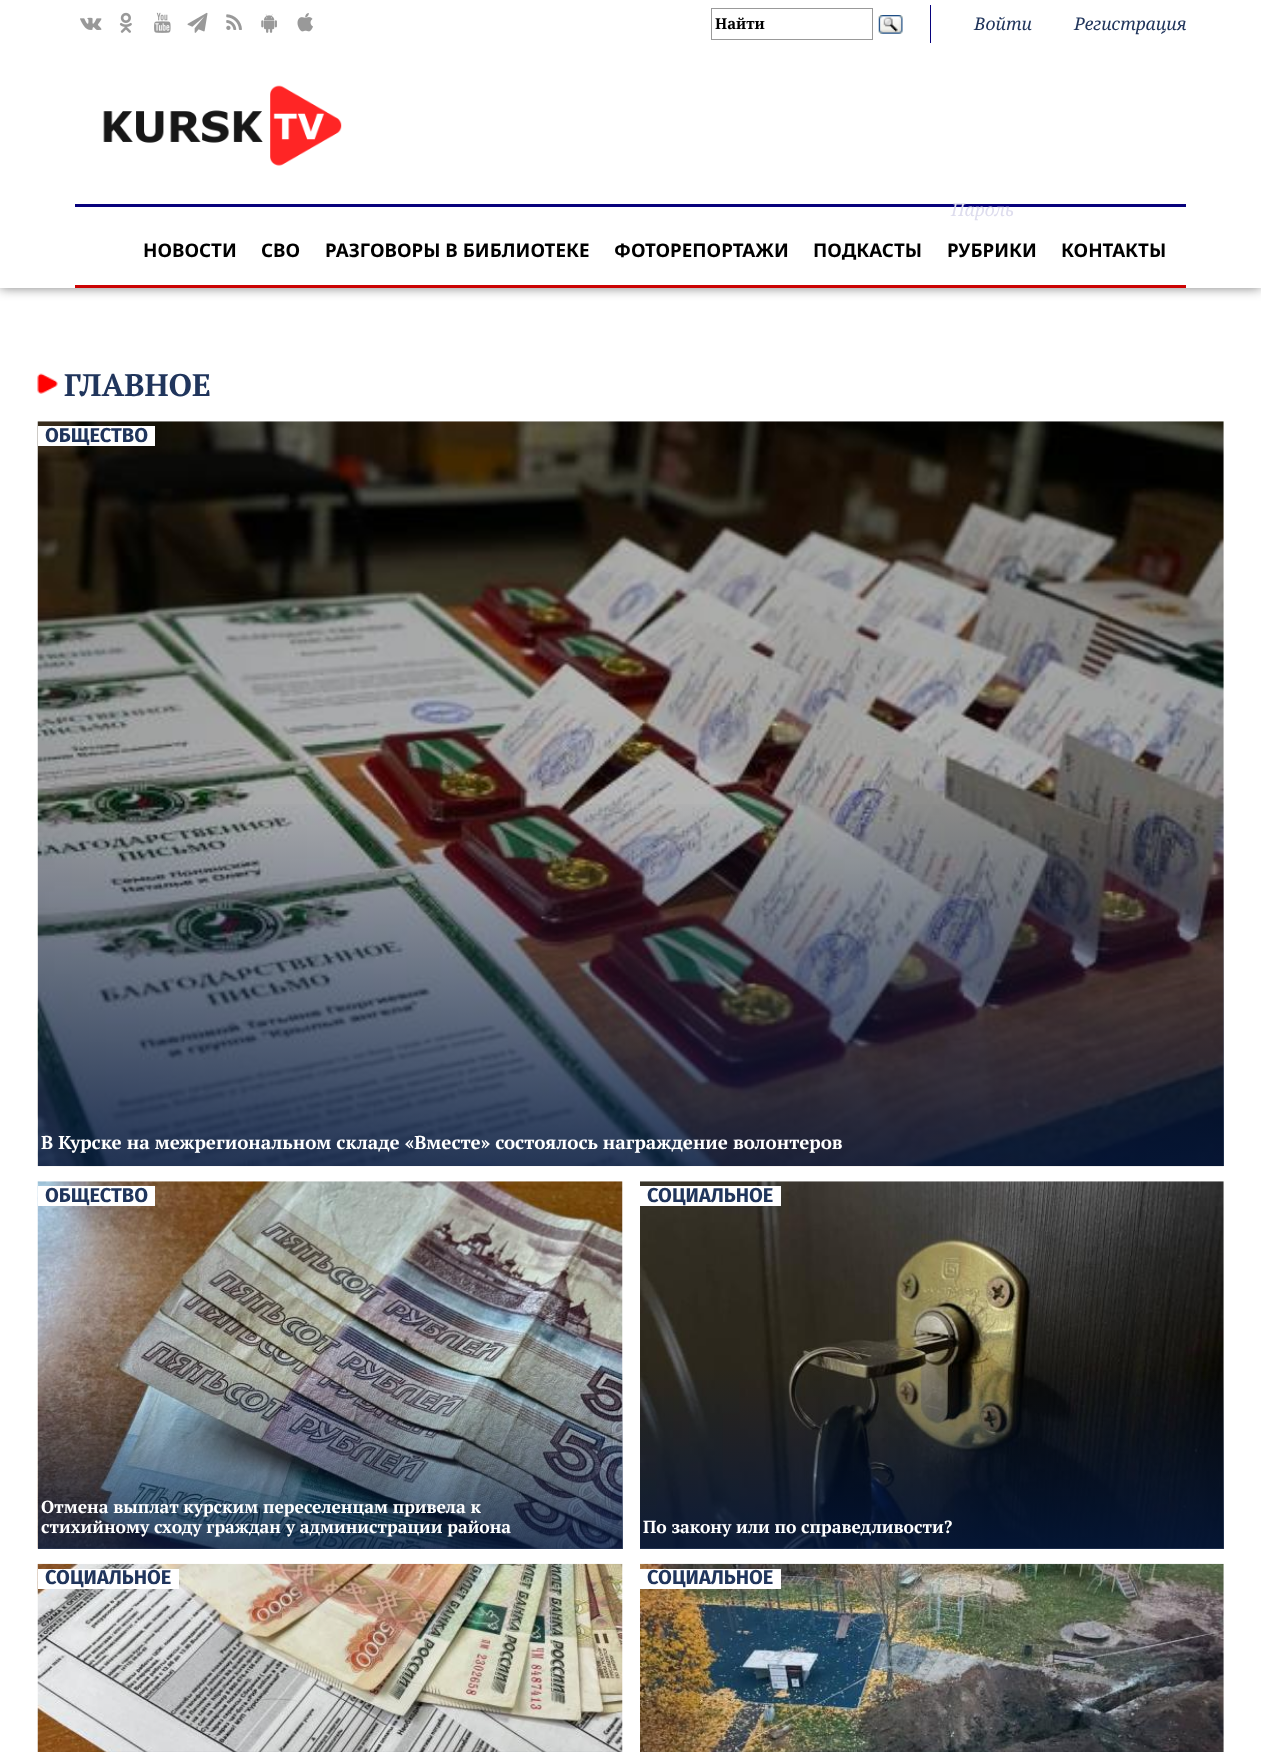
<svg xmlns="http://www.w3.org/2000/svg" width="1261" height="1752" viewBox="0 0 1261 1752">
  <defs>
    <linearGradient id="g1" gradientUnits="userSpaceOnUse" x1="631" y1="794" x2="631" y2="1166"><stop offset="0" stop-color="rgb(4,25,64)" stop-opacity="0"/><stop offset="1" stop-color="rgb(4,25,64)" stop-opacity="0.8"/></linearGradient>
    <linearGradient id="g2" gradientUnits="userSpaceOnUse" x1="330" y1="1365" x2="330" y2="1549"><stop offset="0" stop-color="rgb(4,25,64)" stop-opacity="0"/><stop offset="1" stop-color="rgb(4,25,64)" stop-opacity="0.8"/></linearGradient>
    <linearGradient id="g3" gradientUnits="userSpaceOnUse" x1="330" y1="1746" x2="330" y2="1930"><stop offset="0" stop-color="rgb(4,25,64)" stop-opacity="0"/><stop offset="1" stop-color="rgb(4,25,64)" stop-opacity="0.8"/></linearGradient>
    <linearGradient id="g4" gradientUnits="userSpaceOnUse" x1="932" y1="1365" x2="932" y2="1549"><stop offset="0" stop-color="rgb(4,25,64)" stop-opacity="0"/><stop offset="1" stop-color="rgb(4,25,64)" stop-opacity="0.8"/></linearGradient>
    <linearGradient id="g5" gradientUnits="userSpaceOnUse" x1="932" y1="1746" x2="932" y2="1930"><stop offset="0" stop-color="rgb(4,25,64)" stop-opacity="0"/><stop offset="1" stop-color="rgb(4,25,64)" stop-opacity="0.8"/></linearGradient>
  </defs>
  <rect width="100%" height="100%" fill="rgb(255,255,255)"/>
  <rect x="0" y="0" width="1261" height="288" fill="rgba(0,0,0,0.5)" filter="blur(6px)"/>
  <rect x="0" y="0" width="1261" height="288" fill="rgb(255,255,255)"/>
  <image x="103" y="85" width="239" height="81" href="pic1.png"/>
  <image x="80" y="17" width="22" height="13" href="pic2.png"/>
  <image x="119" y="12" width="13" height="21" href="pic3.png"/>
  <image x="154" y="12" width="17" height="21" href="pic4.png"/>
  <image x="187" y="12" width="21" height="21" href="pic5.png"/>
  <image x="226" y="14" width="16" height="16" href="pic6.png"/>
  <image x="261" y="14" width="16" height="19" href="pic7.png"/>
  <image x="297" y="13" width="16" height="19" href="pic8.png"/>
  <rect x="711.5" y="8.5" width="161" height="31" fill="none" stroke="rgb(153,153,153)"/>
  <text x="715" y="29" font-family="Noto Serif" font-size="15" font-weight="bold" fill="rgb(0,0,0)">Найти</text>
  <image x="878" y="15" width="25" height="19" href="pic9.png"/>
  <rect x="930" y="5" width="1" height="38" fill="rgb(7,1,124)"/>
  <g font-family="Noto Serif" font-size="17.5" font-style="italic" fill="rgb(32,53,92)">
    <text x="974" y="30">Войти</text>
    <text x="1074" y="30">Регистрация</text>
  </g>
  <rect x="75" y="204" width="1111" height="3" fill="rgb(7,1,124)"/>
  <text x="951" y="216" font-family="Noto Serif" font-size="17.5" font-style="italic" fill="rgb(222,221,238)">Пароль</text>
  <rect x="75" y="285" width="1111" height="3" fill="rgb(204,3,3)"/>
  <g font-family="Noto Sans" font-size="18.75" font-weight="bold" fill="rgb(0,0,0)">
    <text x="143" y="257">НОВОСТИ</text>
    <text x="261" y="257">СВО</text>
    <text x="325" y="257">РАЗГОВОРЫ В БИБЛИОТЕКЕ</text>
    <text x="614" y="257">ФОТОРЕПОРТАЖИ</text>
    <text x="813" y="257">ПОДКАСТЫ</text>
    <text x="947" y="257">РУБРИКИ</text>
    <text x="1061" y="257">КОНТАКТЫ</text>
  </g>
  <image x="37" y="373" width="21" height="21" href="pic10.png"/>
  <text x="64" y="396" font-family="PT Serif" font-size="31.25" font-weight="bold" fill="rgb(32,53,92)">ГЛАВНОЕ</text>
  <image x="37" y="421" width="1187" height="746" href="pic11.png"/>
  <rect x="38" y="426" width="117" height="20" fill="rgb(255,255,255)"/>
  <text x="45" y="442" font-family="Fira Sans" font-size="20" font-weight="bold" fill="rgb(32,53,92)">ОБЩЕСТВО</text>
  <rect x="38" y="804" width="1186" height="362" fill="url(#g1)"/>
  <text x="41" y="1149" font-family="PT Serif" font-size="18.75" font-weight="bold" fill="rgb(255,255,255)">В Курске на межрегиональном складе «Вместе» состоялось награждение волонтеров</text>
  <image x="37" y="1181" width="586" height="368" href="pic12.png"/>
  <rect x="38" y="1186" width="117" height="20" fill="rgb(255,255,255)"/>
  <text x="45" y="1202" font-family="Fira Sans" font-size="20" font-weight="bold" fill="rgb(32,53,92)">ОБЩЕСТВО</text>
  <rect x="38" y="1370" width="585" height="179" fill="url(#g2)"/>
  <g font-family="PT Serif" font-size="17.5" font-weight="bold" fill="rgb(255,255,255)">
    <text>
      <tspan x="41" y="1513">Отмена выплат курским переселенцам привела к</tspan>
      <tspan x="41" y="1533">стихийному сходу граждан у администрации района</tspan>
    </text>
  </g>
  <image x="37" y="1563" width="586" height="189" href="pic13.png"/>
  <rect x="38" y="1569" width="141" height="20" fill="rgb(255,255,255)"/>
  <text x="45" y="1584" font-family="Fira Sans" font-size="20" font-weight="bold" fill="rgb(32,53,92)">СОЦИАЛЬНОЕ</text>
  <rect x="38" y="1751" width="585" height="1" fill="url(#g3)"/>
  <image x="640" y="1181" width="584" height="368" href="pic14.png"/>
  <rect x="640" y="1186" width="141" height="20" fill="rgb(255,255,255)"/>
  <text x="647" y="1202" font-family="Fira Sans" font-size="20" font-weight="bold" fill="rgb(32,53,92)">СОЦИАЛЬНОЕ</text>
  <rect x="640" y="1370" width="584" height="179" fill="url(#g4)"/>
  <text x="643" y="1533" font-family="PT Serif" font-size="17.5" font-weight="bold" fill="rgb(255,255,255)">По закону или по справедливости?</text>
  <image x="640" y="1563" width="584" height="189" href="pic15.png"/>
  <rect x="640" y="1569" width="141" height="20" fill="rgb(255,255,255)"/>
  <text x="647" y="1584" font-family="Fira Sans" font-size="20" font-weight="bold" fill="rgb(32,53,92)">СОЦИАЛЬНОЕ</text>
  <rect x="640" y="1751" width="584" height="1" fill="url(#g5)"/>
</svg>
